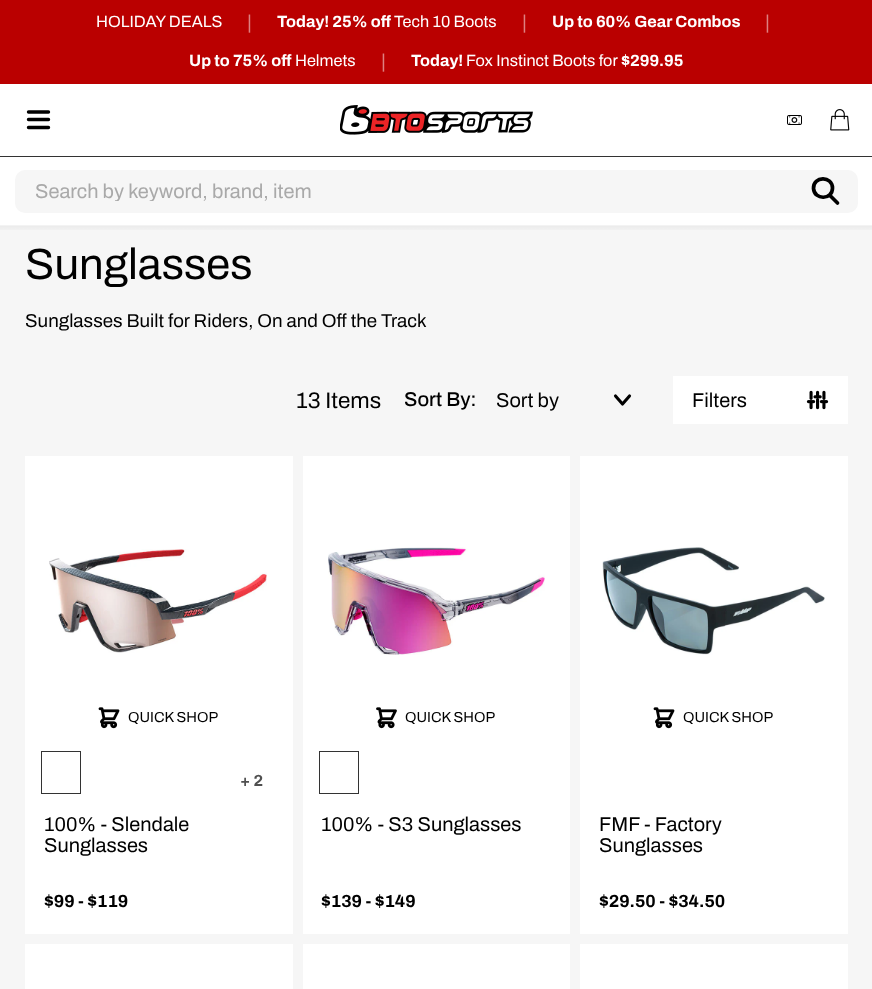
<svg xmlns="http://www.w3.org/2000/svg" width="872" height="989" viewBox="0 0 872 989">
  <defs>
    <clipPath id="clip1"><rect x="35" y="180" width="763" height="21"/></clipPath>
    <linearGradient id="g1" gradientUnits="userSpaceOnUse" x1="436" y1="225" x2="436" y2="233"><stop offset="0" stop-color="rgb(0,0,0)" stop-opacity="0.05"/><stop offset="1" stop-color="rgb(0,0,0)" stop-opacity="0"/></linearGradient>
  </defs>
  <rect width="100%" height="100%" fill="rgb(255,255,255)"/>
  <rect x="0" y="0" width="872" height="84" fill="rgb(186,0,0)"/>
  <text x="96" y="27" font-family="Archivo" font-size="16.25" fill="rgb(255,255,255)">HOLIDAY DEALS</text>
  <text x="247" y="29" font-family="Archivo" font-size="20" fill="rgb(221,128,128)">|</text>
  <text x="277" y="27" font-family="Archivo" font-size="16.25" font-weight="bold" fill="rgb(255,255,255)">Today! 25% off</text>
  <text x="394" y="27" font-family="Archivo" font-size="16.25" fill="rgb(255,255,255)">Tech 10 Boots</text>
  <text x="522" y="29" font-family="Archivo" font-size="20" fill="rgb(221,128,128)">|</text>
  <text x="552" y="27" font-family="Archivo" font-size="16.25" font-weight="bold" fill="rgb(255,255,255)">Up to 60% Gear Combos</text>
  <text x="765" y="29" font-family="Archivo" font-size="20" fill="rgb(221,128,128)">|</text>
  <text x="189" y="66" font-family="Archivo" font-size="16.25" font-weight="bold" fill="rgb(255,255,255)">Up to 75% off</text>
  <text x="295" y="66" font-family="Archivo" font-size="16.25" fill="rgb(255,255,255)">Helmets</text>
  <text x="381" y="68" font-family="Archivo" font-size="20" fill="rgb(221,128,128)">|</text>
  <text x="411" y="66" font-family="Archivo" font-size="16.25" font-weight="bold" fill="rgb(255,255,255)">Today!</text>
  <text x="466" y="66" font-family="Archivo" font-size="16.25" fill="rgb(255,255,255)">Fox Instinct Boots for</text>
  <text x="621" y="66" font-family="Archivo" font-size="16.25" font-weight="bold" fill="rgb(255,255,255)">$299.95</text>
  <path d="M28.5 119.5H48.5M28.5 127.5H48.5M48.5 112H28.5" fill="none" stroke="rgb(0,0,0)" stroke-width="3.4" stroke-linecap="round" stroke-linejoin="round"/>
  <image x="340" y="105" width="193" height="30" href="pic1.png"/>
  <image x="787" y="115" width="15" height="10" href="pic2.png"/>
  <image x="830" y="109" width="20" height="22" href="pic3.png"/>
  <rect x="0" y="156" width="872" height="1" fill="rgb(51,51,51)"/>
  <rect x="15" y="170" width="843" height="43" rx="10" fill="rgb(246,246,246)"/>
  <g clip-path="url(#clip1)">
    <text x="35" y="198" font-family="Archivo" font-size="20" fill="rgb(169,169,169)">Search by keyword, brand, item</text>
  </g>
  <path d="M837.5 203L829.5 195M832.5 188C832.5 200 814.5 200.5 813.5 188.5C813 176 832.5 175.5 832.5 188Z" fill="none" stroke="rgb(0,0,0)" stroke-width="3.7" stroke-linecap="round" stroke-linejoin="round"/>
  <rect x="0" y="226" width="872" height="763" fill="rgb(246,246,246)"/>
  <rect x="0" y="225" width="872" height="5" fill="url(#g1)"/>
  <text x="25" y="279" font-family="Archivo" font-size="43.75" fill="rgb(0,0,0)">Sunglasses</text>
  <text x="25" y="327" font-family="Archivo" font-size="18.75" fill="rgb(0,0,0)">Sunglasses Built for Riders, On and Off the Track</text>
  <text x="296" y="408" font-family="Archivo" font-size="22.5" fill="rgb(0,0,0)">13 Items</text>
  <text x="404" y="406" font-family="Archivo" font-size="20" font-weight="500" fill="rgb(0,0,0)">Sort By:</text>
  <text x="496" y="407" font-family="Archivo" font-size="20" fill="rgb(0,0,0)">Sort by</text>
  <path d="M629.5 396L622.5 404L615.5 396" fill="none" stroke="rgb(0,0,0)" stroke-width="3.1" stroke-linecap="round" stroke-linejoin="round"/>
  <rect x="673" y="376" width="175" height="48" fill="rgb(255,255,255)"/>
  <text x="692" y="407" font-family="Archivo" font-size="20" fill="rgb(0,0,0)">Filters</text>
  <image x="806" y="390" width="23" height="20" href="pic4.png"/>
  <rect x="25" y="456" width="268" height="478" fill="rgb(255,255,255)"/>
  <image x="49" y="549" width="218" height="104" href="pic5.png"/>
  <image x="98" y="707" width="22" height="22" href="pic6.png"/>
  <text x="128" y="722" font-family="Archivo" font-size="14.5" fill="rgb(0,0,0)">QUICK SHOP</text>
  <rect x="41.5" y="751.5" width="39" height="42" fill="none" stroke="rgb(51,51,51)"/>
  <text x="240" y="786" font-family="Archivo" font-size="16" font-weight="bold" fill="rgb(79,79,79)">+ 2</text>
  <g font-family="Archivo" font-size="20" fill="rgb(0,0,0)">
    <text>
      <tspan x="44" y="831">100% - Slendale</tspan>
      <tspan x="44" y="852">Sunglasses</tspan>
    </text>
  </g>
  <text x="44" y="907" font-family="Archivo" font-size="17.5" font-weight="bold" fill="rgb(0,0,0)">$99 - $119</text>
  <rect x="303" y="456" width="267" height="478" fill="rgb(255,255,255)"/>
  <image x="328" y="547" width="217" height="108" href="pic7.png"/>
  <image x="376" y="707" width="21" height="22" href="pic8.png"/>
  <text x="405" y="722" font-family="Archivo" font-size="14.5" fill="rgb(0,0,0)">QUICK SHOP</text>
  <rect x="319.5" y="751.5" width="39" height="42" fill="none" stroke="rgb(51,51,51)"/>
  <text x="321" y="831" font-family="Archivo" font-size="20" fill="rgb(0,0,0)">100% - S3 Sunglasses</text>
  <text x="321" y="907" font-family="Archivo" font-size="17.5" font-weight="bold" fill="rgb(0,0,0)">$139 - $149</text>
  <rect x="580" y="456" width="268" height="478" fill="rgb(255,255,255)"/>
  <image x="602" y="547" width="223" height="108" href="pic9.png"/>
  <image x="653" y="707" width="22" height="22" href="pic6.png"/>
  <text x="683" y="722" font-family="Archivo" font-size="14.5" fill="rgb(0,0,0)">QUICK SHOP</text>
  <g font-family="Archivo" font-size="20" fill="rgb(0,0,0)">
    <text>
      <tspan x="599" y="831">FMF - Factory</tspan>
      <tspan x="599" y="852">Sunglasses</tspan>
    </text>
  </g>
  <text x="599" y="907" font-family="Archivo" font-size="17.5" font-weight="bold" fill="rgb(0,0,0)">$29.50 - $34.50</text>
  <rect x="25" y="944" width="268" height="45" fill="rgb(255,255,255)"/>
  <rect x="303" y="944" width="267" height="45" fill="rgb(255,255,255)"/>
  <rect x="580" y="944" width="268" height="45" fill="rgb(255,255,255)"/>
</svg>
